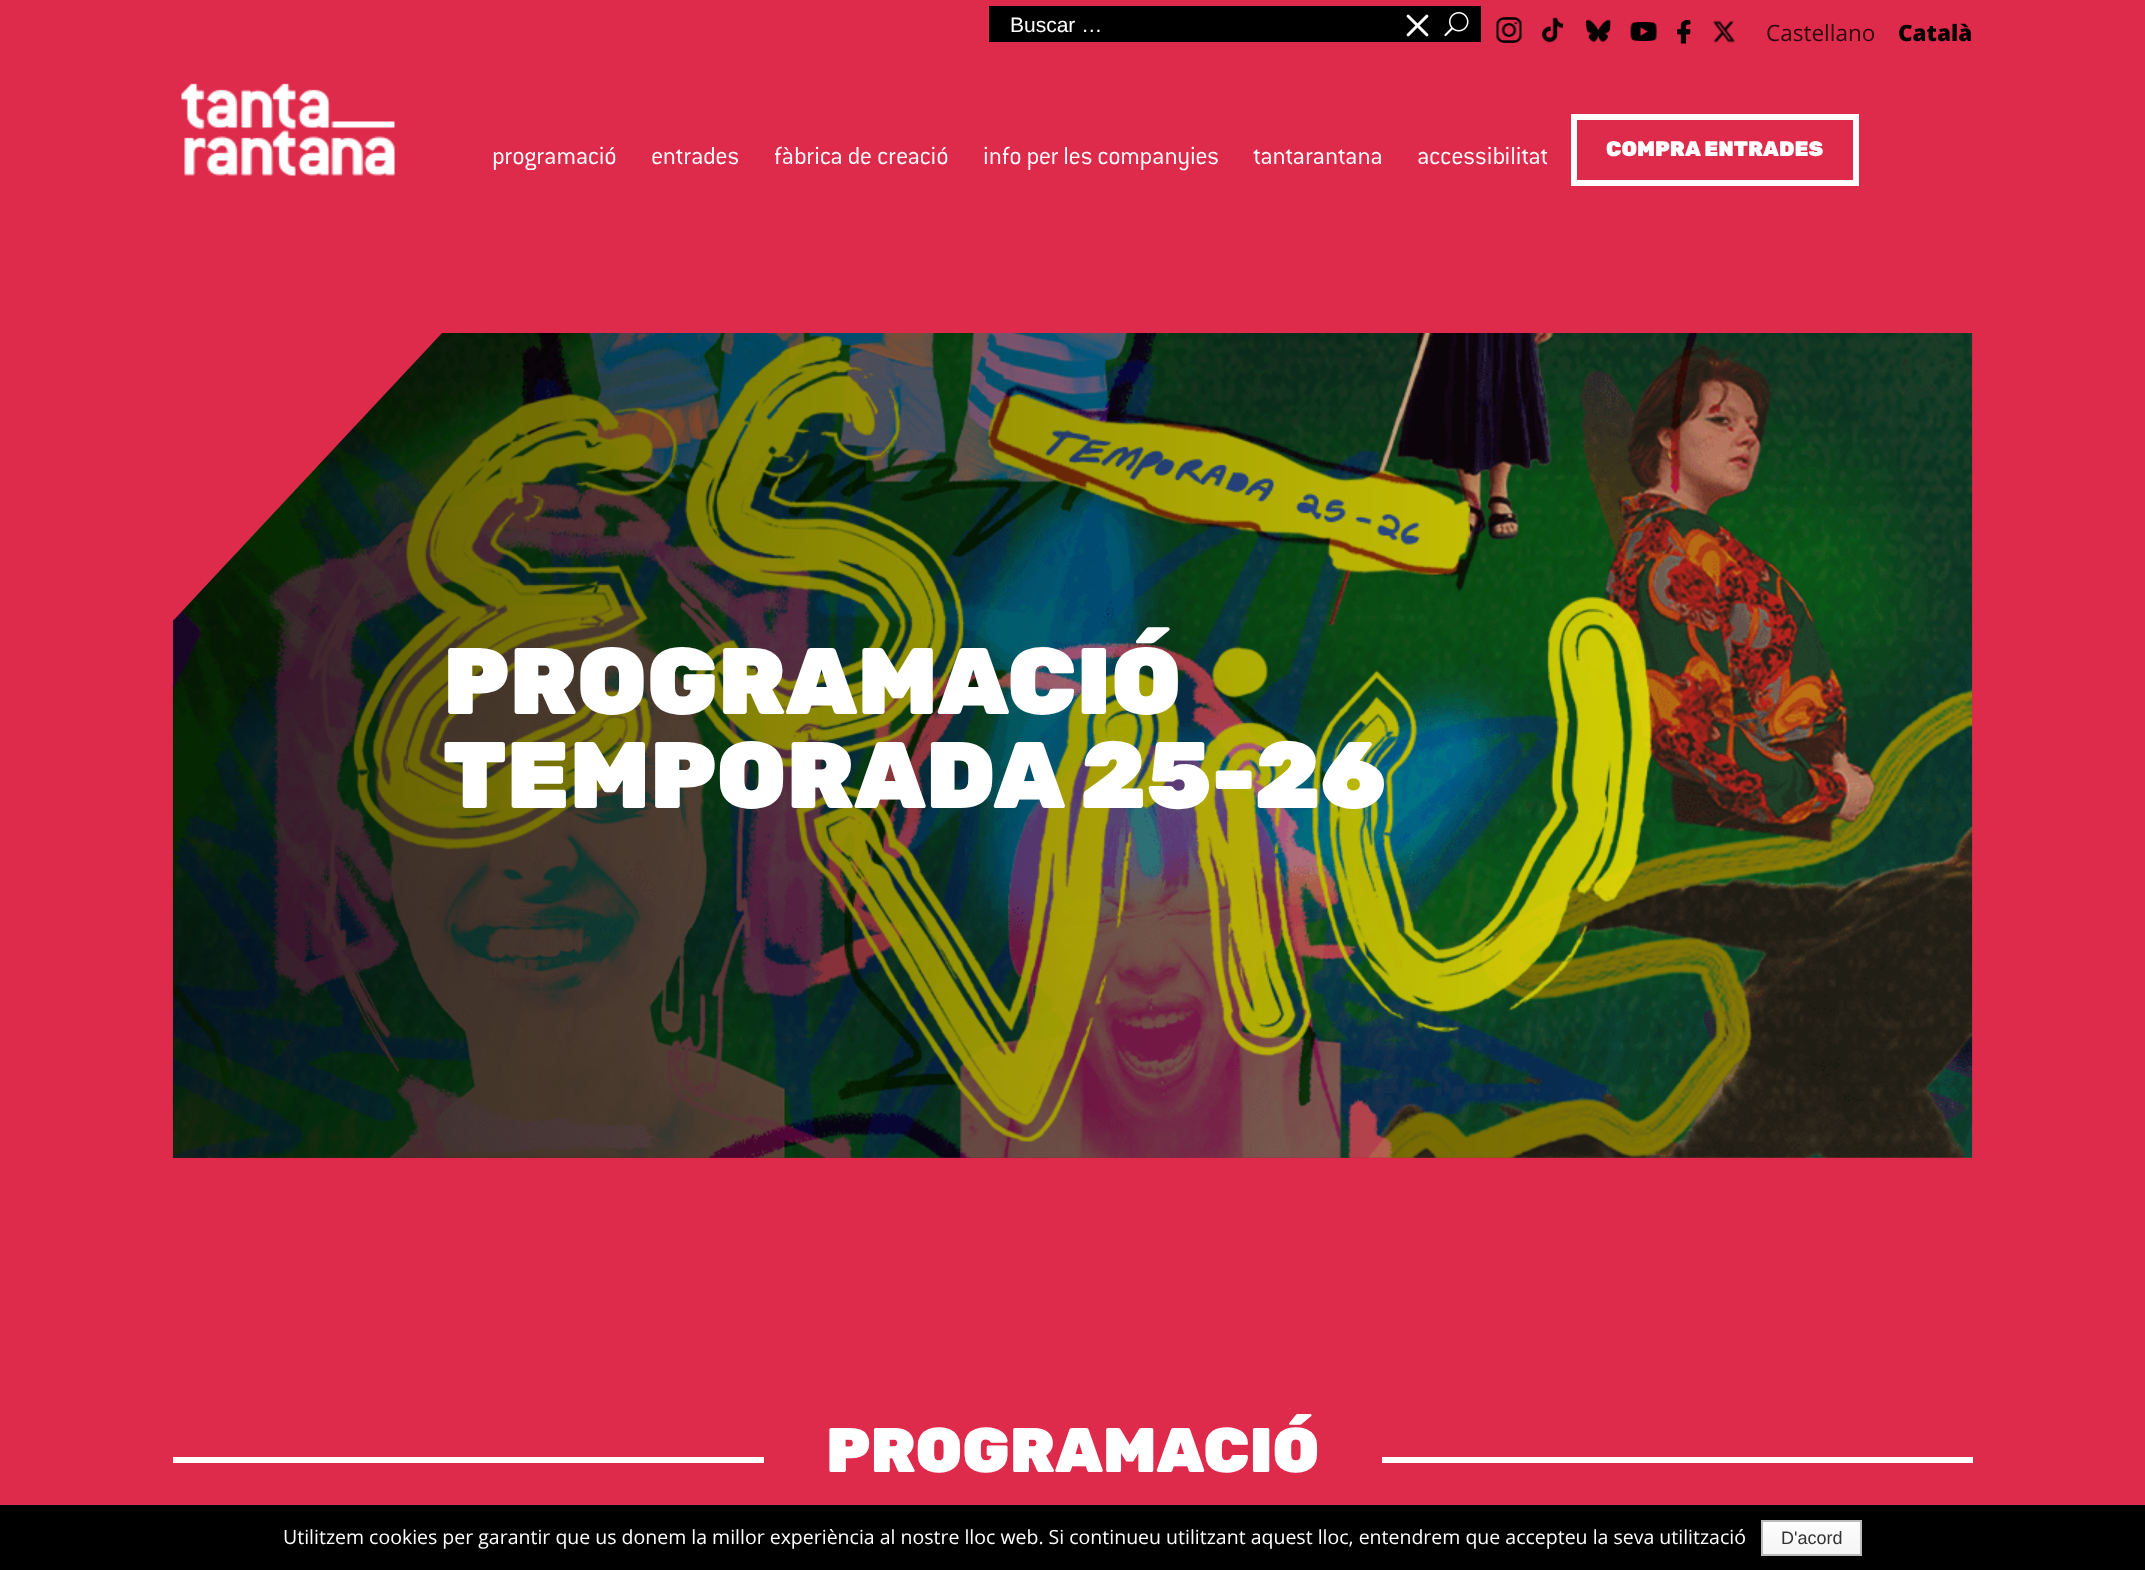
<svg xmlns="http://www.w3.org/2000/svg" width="2145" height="1570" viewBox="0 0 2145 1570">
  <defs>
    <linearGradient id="g1" gradientUnits="userSpaceOnUse" x1="173" y1="746" x2="1973" y2="745"><stop offset="0" stop-color="rgb(0,0,0)" stop-opacity="0.65"/><stop offset="1" stop-color="rgb(0,0,0)" stop-opacity="0"/></linearGradient>
    <linearGradient id="g2" gradientUnits="userSpaceOnUse" x1="1811" y1="1521" x2="1811" y2="1554"><stop offset="0" stop-color="rgb(254,254,254)"/><stop offset="1" stop-color="rgb(244,244,244)"/></linearGradient>
  </defs>
  <rect width="100%" height="100%" fill="rgb(222,42,75)"/>
  <rect x="989" y="6" width="492" height="36" fill="rgb(0,0,0)"/>
  <image x="1444" y="12" width="25" height="25" href="pic1.png"/>
  <text x="1010" y="32" font-family="Liberation Sans" font-size="21" fill="rgb(255,255,255)">Buscar …</text>
  <image x="1406" y="14" width="23" height="23" href="pic2.png"/>
  <image x="1496" y="17" width="26" height="26" href="pic3.png"/>
  <image x="1541" y="17" width="23" height="26" href="pic4.png"/>
  <image x="1585" y="19" width="26" height="24" href="pic5.png"/>
  <image x="1630" y="22" width="28" height="19" href="pic6.png"/>
  <image x="1677" y="20" width="14" height="24" href="pic7.png"/>
  <image x="1713" y="20" width="22" height="23" href="pic8.png"/>
  <text x="1766" y="41" font-family="Open Sans" font-size="22.5" fill="rgb(44,8,15)">Castellano</text>
  <text x="1898" y="41" font-family="Open Sans" font-size="22.5" font-weight="800" fill="rgb(0,0,0)">Català</text>
  <image x="181" y="83" width="214" height="93" href="pic9.png"/>
  <g font-family="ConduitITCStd" font-size="27" font-weight="300" fill="rgb(255,255,255)">
    <text x="492" y="164">programació</text>
    <text x="651" y="164">entrades</text>
    <text x="774" y="164">fàbrica de creació</text>
    <text x="983" y="164">info per les companyies</text>
    <text x="1253" y="164">tantarantana</text>
    <text x="1417" y="164">accessibilitat</text>
  </g>
  <rect x="1574" y="117" width="282" height="66" fill="none" stroke="rgb(255,255,255)" stroke-width="6"/>
  <text x="1606" y="156" font-family="Rubik" font-size="21" font-weight="300" fill="rgb(255,255,255)">COMPRA ENTRADES</text>
  <image x="172" y="333" width="1801" height="825" href="pic10.png"/>
  <path d="M173 621L442 333H1972V1158H173Z" fill="url(#g1)"/>
  <g font-family="Rubik" font-size="94.25" font-weight="300" fill="rgb(255,255,255)">
    <text>
      <tspan x="443" y="714">PROGRAMACIÓ</tspan>
      <tspan x="443" y="808">TEMPORADA 25-26</tspan>
    </text>
  </g>
  <rect x="173" y="1457" width="1800" height="6" fill="rgb(255,255,255)"/>
  <rect x="764" y="1457" width="618" height="6" fill="rgb(222,42,75)"/>
  <text x="826" y="1472" font-family="Rubik" font-size="63" font-weight="300" fill="rgb(255,255,255)">PROGRAMACIÓ</text>
  <rect x="0" y="1505" width="2145" height="65" fill="rgb(0,0,0)"/>
  <text x="283" y="1544" font-family="Open Sans" font-size="19.5" fill="rgb(255,255,255)">Utilitzem cookies per garantir que us donem la millor experiència al nostre lloc web. Si continueu utilitzant aquest lloc, entendrem que accepteu la seva utilització</text>
  <rect x="1763" y="1522" width="97" height="32" fill="url(#g2)"/>
  <rect x="1762" y="1521" width="99" height="34" fill="none" stroke="rgb(187,187,187)" stroke-width="2"/>
  <text x="1781" y="1544" font-family="Liberation Sans" font-size="18" fill="rgb(51,51,51)">D'acord</text>
</svg>
